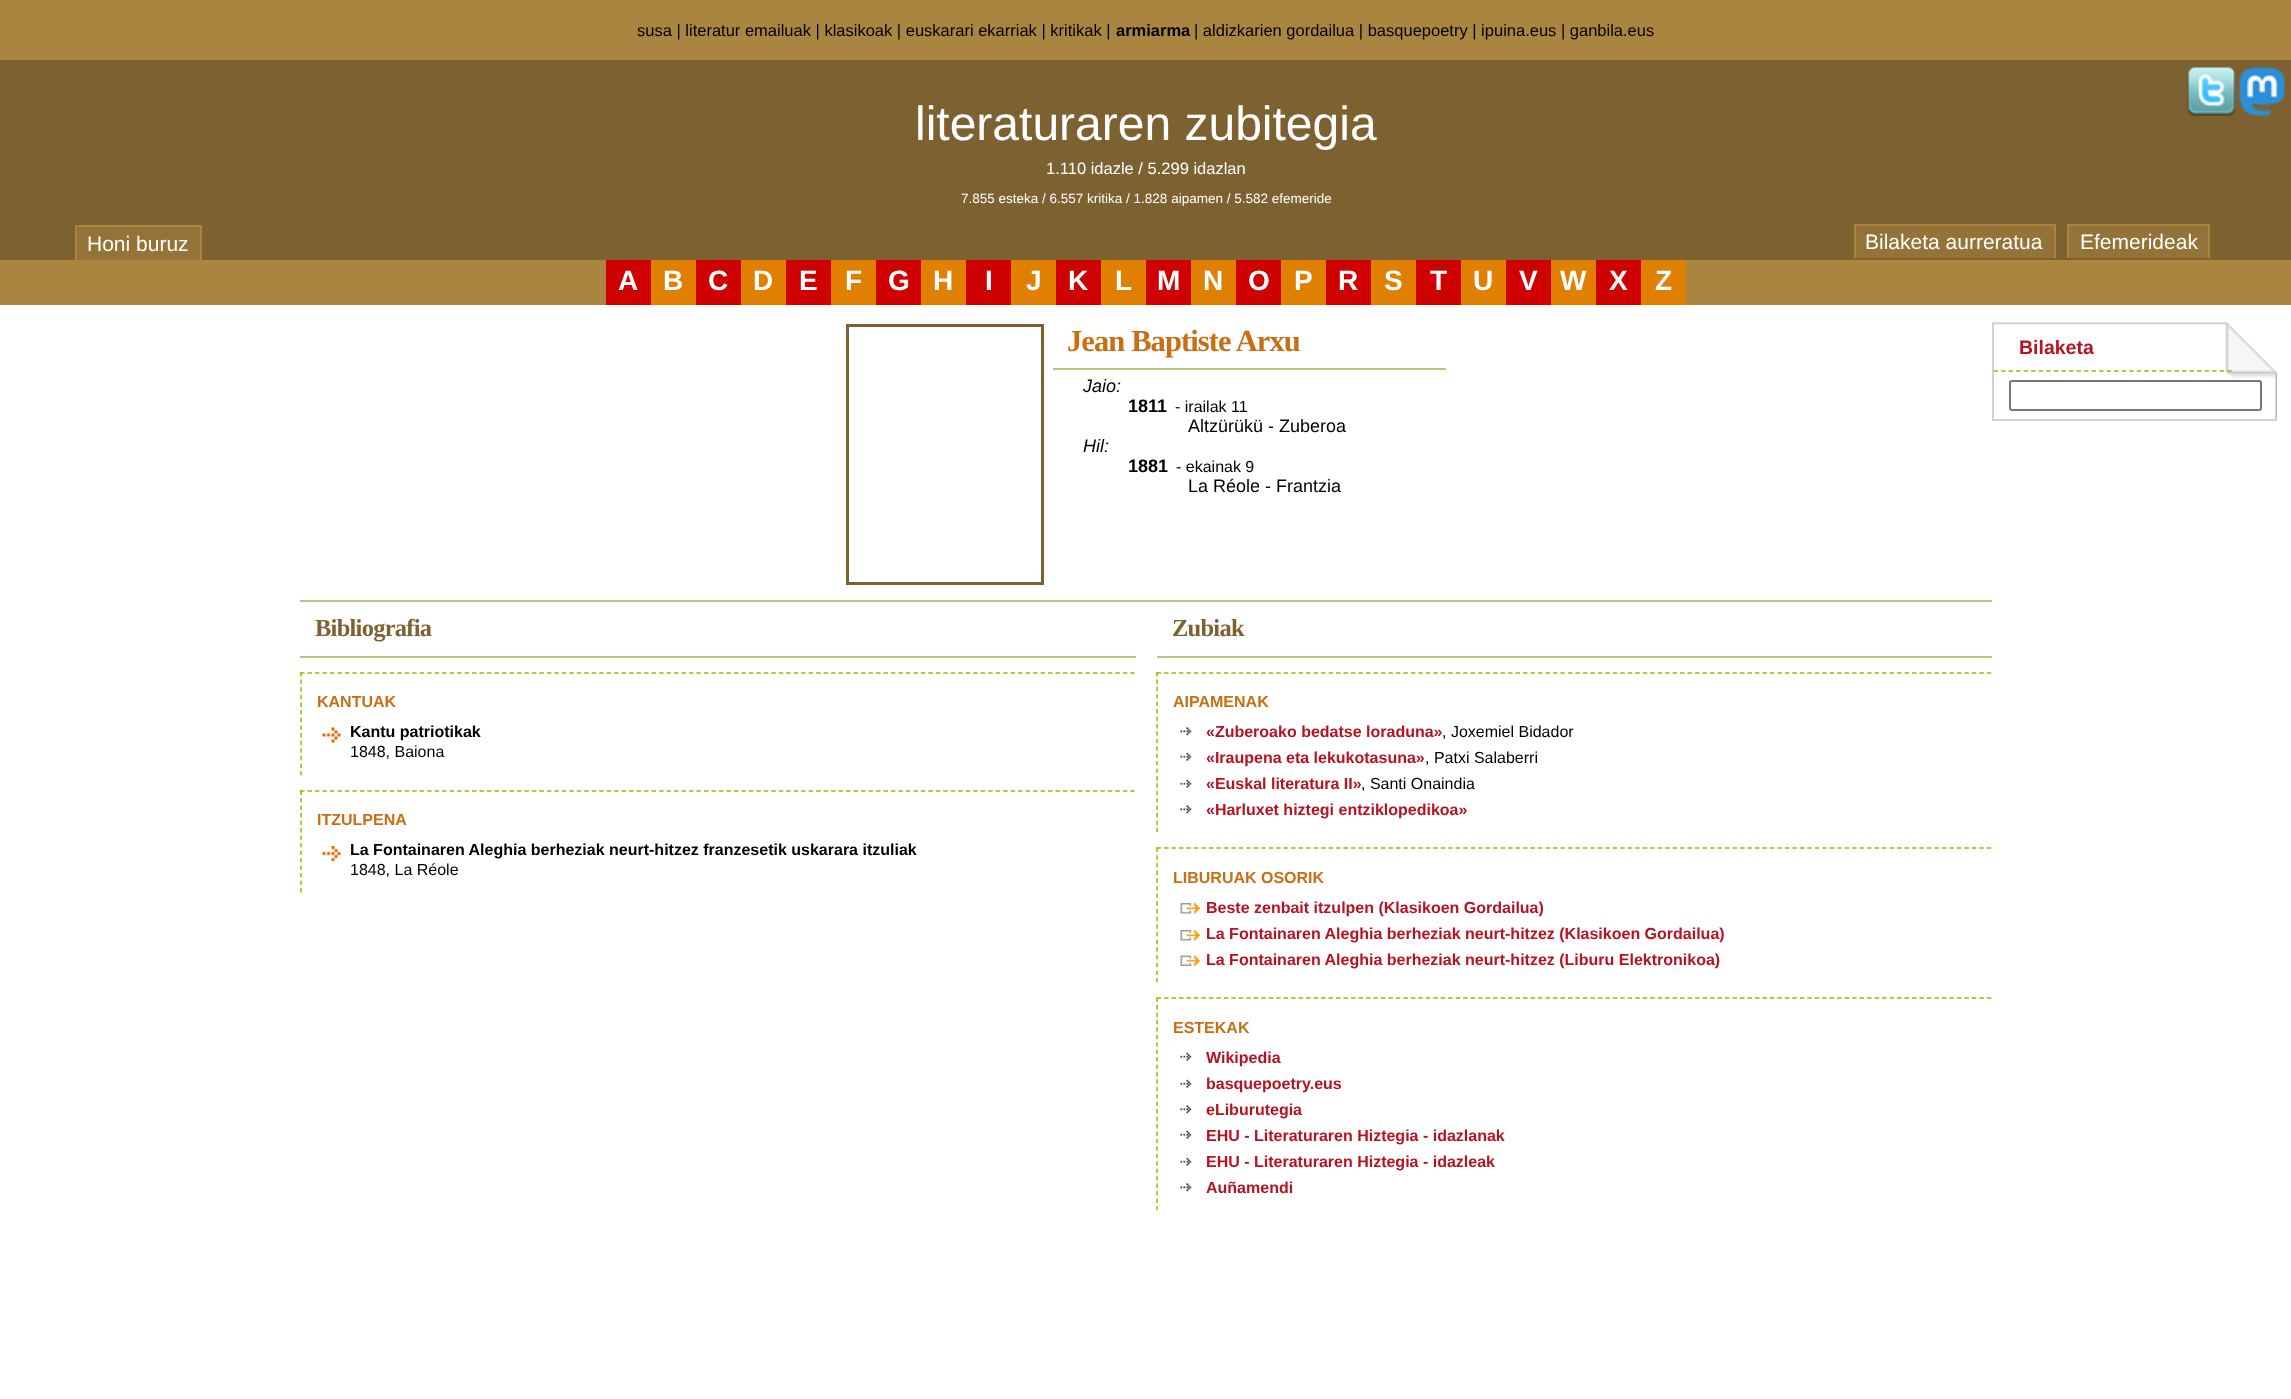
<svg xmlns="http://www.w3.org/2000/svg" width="2291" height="1399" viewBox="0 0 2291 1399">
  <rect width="100%" height="100%" fill="rgb(255,255,255)"/>
  <rect x="0" y="0" width="2291" height="60" fill="rgb(170,133,63)"/>
  <text x="637" y="36" font-family="Liberation Sans" font-size="16.5" fill="rgb(0,0,0)">susa | literatur emailuak | klasikoak | euskarari ekarriak | kritikak |</text>
  <text x="1116" y="36" font-family="Liberation Sans" font-size="16.5" font-weight="bold" fill="rgb(0,0,0)">armiarma</text>
  <text x="1194" y="36" font-family="Liberation Sans" font-size="16.5" fill="rgb(0,0,0)">| aldizkarien gordailua | basquepoetry | ipuina.eus | ganbila.eus</text>
  <rect x="0" y="60" width="2291" height="200" fill="rgb(125,97,49)"/>
  <image x="2187" y="67" width="48" height="49" href="pic1.png"/>
  <image x="2239" y="67" width="46" height="49" href="pic2.png"/>
  <text x="915" y="140" font-family="Liberation Sans" font-size="48" fill="rgb(255,255,255)">literaturaren zubitegia</text>
  <text x="1046" y="174" font-family="Liberation Sans" font-size="16.5" fill="rgb(255,255,255)">1.110 idazle / 5.299 idazlan</text>
  <text x="961" y="203" font-family="Liberation Sans" font-size="13.5" fill="rgb(255,255,255)">7.855 esteka / 6.557 kritika / 1.828 aipamen / 5.582 efemeride</text>
  <rect x="77" y="227" width="123" height="33" fill="rgb(148,115,56)"/>
  <text x="87" y="251" font-family="Liberation Sans" font-size="21" fill="rgb(255,255,255)">Honi buruz</text>
  <rect x="75" y="225" width="126" height="2" fill="rgb(170,132,63)"/>
  <rect x="200" y="225" width="2" height="35" fill="rgb(170,132,63)"/>
  <rect x="75" y="225" width="2" height="35" fill="rgb(170,132,63)"/>
  <rect x="1856" y="226" width="198" height="32" fill="rgb(148,115,56)"/>
  <text x="1865" y="249" font-family="Liberation Sans" font-size="21" fill="rgb(255,255,255)">Bilaketa aurreratua</text>
  <rect x="1854" y="224" width="201" height="2" fill="rgb(170,132,63)"/>
  <rect x="2054" y="224" width="2" height="34" fill="rgb(170,132,63)"/>
  <rect x="1854" y="224" width="2" height="34" fill="rgb(170,132,63)"/>
  <rect x="2069" y="226" width="139" height="32" fill="rgb(148,115,56)"/>
  <text x="2080" y="249" font-family="Liberation Sans" font-size="21" fill="rgb(255,255,255)">Efemerideak</text>
  <rect x="2067" y="224" width="143" height="2" fill="rgb(170,132,63)"/>
  <rect x="2208" y="224" width="2" height="34" fill="rgb(170,132,63)"/>
  <rect x="2067" y="224" width="2" height="34" fill="rgb(170,132,63)"/>
  <rect x="0" y="260" width="2291" height="45" fill="rgb(170,133,63)"/>
  <rect x="606" y="260" width="45" height="45" fill="rgb(207,0,0)"/>
  <text x="618" y="290" font-family="Liberation Sans" font-size="28" font-weight="bold" fill="rgb(255,255,255)">A</text>
  <rect x="651" y="260" width="45" height="45" fill="rgb(224,127,0)"/>
  <text x="663" y="290" font-family="Liberation Sans" font-size="28" font-weight="bold" fill="rgb(255,255,255)">B</text>
  <rect x="696" y="260" width="45" height="45" fill="rgb(207,0,0)"/>
  <text x="708" y="290" font-family="Liberation Sans" font-size="28" font-weight="bold" fill="rgb(255,255,255)">C</text>
  <rect x="741" y="260" width="45" height="45" fill="rgb(224,127,0)"/>
  <text x="753" y="290" font-family="Liberation Sans" font-size="28" font-weight="bold" fill="rgb(255,255,255)">D</text>
  <rect x="786" y="260" width="45" height="45" fill="rgb(207,0,0)"/>
  <text x="799" y="290" font-family="Liberation Sans" font-size="28" font-weight="bold" fill="rgb(255,255,255)">E</text>
  <rect x="831" y="260" width="45" height="45" fill="rgb(224,127,0)"/>
  <text x="845" y="290" font-family="Liberation Sans" font-size="28" font-weight="bold" fill="rgb(255,255,255)">F</text>
  <rect x="876" y="260" width="45" height="45" fill="rgb(207,0,0)"/>
  <text x="888" y="290" font-family="Liberation Sans" font-size="28" font-weight="bold" fill="rgb(255,255,255)">G</text>
  <rect x="921" y="260" width="45" height="45" fill="rgb(224,127,0)"/>
  <text x="933" y="290" font-family="Liberation Sans" font-size="28" font-weight="bold" fill="rgb(255,255,255)">H</text>
  <rect x="966" y="260" width="45" height="45" fill="rgb(207,0,0)"/>
  <text x="985" y="290" font-family="Liberation Sans" font-size="28" font-weight="bold" fill="rgb(255,255,255)">I</text>
  <rect x="1011" y="260" width="45" height="45" fill="rgb(224,127,0)"/>
  <text x="1026" y="290" font-family="Liberation Sans" font-size="28" font-weight="bold" fill="rgb(255,255,255)">J</text>
  <rect x="1056" y="260" width="45" height="45" fill="rgb(207,0,0)"/>
  <text x="1068" y="290" font-family="Liberation Sans" font-size="28" font-weight="bold" fill="rgb(255,255,255)">K</text>
  <rect x="1101" y="260" width="45" height="45" fill="rgb(224,127,0)"/>
  <text x="1115" y="290" font-family="Liberation Sans" font-size="28" font-weight="bold" fill="rgb(255,255,255)">L</text>
  <rect x="1146" y="260" width="45" height="45" fill="rgb(207,0,0)"/>
  <text x="1157" y="290" font-family="Liberation Sans" font-size="28" font-weight="bold" fill="rgb(255,255,255)">M</text>
  <rect x="1191" y="260" width="45" height="45" fill="rgb(224,127,0)"/>
  <text x="1203" y="290" font-family="Liberation Sans" font-size="28" font-weight="bold" fill="rgb(255,255,255)">N</text>
  <rect x="1236" y="260" width="45" height="45" fill="rgb(207,0,0)"/>
  <text x="1248" y="290" font-family="Liberation Sans" font-size="28" font-weight="bold" fill="rgb(255,255,255)">O</text>
  <rect x="1281" y="260" width="45" height="45" fill="rgb(224,127,0)"/>
  <text x="1294" y="290" font-family="Liberation Sans" font-size="28" font-weight="bold" fill="rgb(255,255,255)">P</text>
  <rect x="1326" y="260" width="45" height="45" fill="rgb(207,0,0)"/>
  <text x="1338" y="290" font-family="Liberation Sans" font-size="28" font-weight="bold" fill="rgb(255,255,255)">R</text>
  <rect x="1371" y="260" width="45" height="45" fill="rgb(224,127,0)"/>
  <text x="1384" y="290" font-family="Liberation Sans" font-size="28" font-weight="bold" fill="rgb(255,255,255)">S</text>
  <rect x="1416" y="260" width="45" height="45" fill="rgb(207,0,0)"/>
  <text x="1430" y="290" font-family="Liberation Sans" font-size="28" font-weight="bold" fill="rgb(255,255,255)">T</text>
  <rect x="1461" y="260" width="45" height="45" fill="rgb(224,127,0)"/>
  <text x="1473" y="290" font-family="Liberation Sans" font-size="28" font-weight="bold" fill="rgb(255,255,255)">U</text>
  <rect x="1506" y="260" width="45" height="45" fill="rgb(207,0,0)"/>
  <text x="1519" y="290" font-family="Liberation Sans" font-size="28" font-weight="bold" fill="rgb(255,255,255)">V</text>
  <rect x="1551" y="260" width="45" height="45" fill="rgb(224,127,0)"/>
  <text x="1560" y="290" font-family="Liberation Sans" font-size="28" font-weight="bold" fill="rgb(255,255,255)">W</text>
  <rect x="1596" y="260" width="45" height="45" fill="rgb(207,0,0)"/>
  <text x="1609" y="290" font-family="Liberation Sans" font-size="28" font-weight="bold" fill="rgb(255,255,255)">X</text>
  <rect x="1641" y="260" width="45" height="45" fill="rgb(224,127,0)"/>
  <text x="1655" y="290" font-family="Liberation Sans" font-size="28" font-weight="bold" fill="rgb(255,255,255)">Z</text>
  <rect x="847.5" y="325.5" width="195" height="258" fill="none" stroke="rgb(125,98,48)" stroke-width="3"/>
  <rect x="1053" y="368" width="393" height="2" fill="rgb(186,198,127)"/>
  <text x="1067" y="351" font-family="Liberation Serif" font-size="30.5" font-weight="bold" letter-spacing="-0.9" fill="rgb(200,110,20)">Jean Baptiste Arxu</text>
  <text x="1083" y="392" font-family="Liberation Sans" font-size="18" font-style="italic" fill="rgb(0,0,0)">Jaio:</text>
  <text x="1128" y="412" font-family="Liberation Sans" font-size="18" font-weight="bold" fill="rgb(0,0,0)">1811</text>
  <text x="1175" y="412" font-family="Liberation Sans" font-size="16" fill="rgb(0,0,0)">- irailak 11</text>
  <text x="1188" y="432" font-family="Liberation Sans" font-size="18" fill="rgb(0,0,0)">Altzürükü - Zuberoa</text>
  <text x="1083" y="452" font-family="Liberation Sans" font-size="18" font-style="italic" fill="rgb(0,0,0)">Hil:</text>
  <text x="1128" y="472" font-family="Liberation Sans" font-size="18" font-weight="bold" fill="rgb(0,0,0)">1881</text>
  <text x="1176" y="472" font-family="Liberation Sans" font-size="16" fill="rgb(0,0,0)">- ekainak 9</text>
  <text x="1188" y="492" font-family="Liberation Sans" font-size="18" fill="rgb(0,0,0)">La Réole - Frantzia</text>
  <rect x="300" y="600" width="1692" height="2" fill="rgb(186,198,127)"/>
  <rect x="300" y="656" width="836" height="2" fill="rgb(186,198,127)"/>
  <text x="315" y="636" font-family="Liberation Serif" font-size="24.5" font-weight="bold" letter-spacing="-0.75" fill="rgb(125,97,49)">Bibliografia</text>
  <path d="M300 673H1135.5" fill="none" stroke="rgb(154,186,3)" stroke-width="1.5" stroke-dasharray="4.5 2.98"/>
  <path d="M301 672V775.5" fill="none" stroke="rgb(154,186,3)" stroke-width="1.5" stroke-dasharray="4.5 3.12"/>
  <text x="317" y="707" font-family="Liberation Sans" font-size="16" font-weight="bold" fill="rgb(200,110,20)">KANTUAK</text>
  <image x="322" y="727" width="19" height="16" href="pic3.png"/>
  <text x="350" y="737" font-family="Liberation Sans" font-size="16" font-weight="bold" fill="rgb(0,0,0)">Kantu patriotikak</text>
  <text x="350" y="757" font-family="Liberation Sans" font-size="16" fill="rgb(0,0,0)">1848, Baiona</text>
  <path d="M300 791H1135.5" fill="none" stroke="rgb(154,186,3)" stroke-width="1.5" stroke-dasharray="4.5 2.98"/>
  <path d="M301 790.5V892.5" fill="none" stroke="rgb(154,186,3)" stroke-width="1.5" stroke-dasharray="4.5 3"/>
  <text x="317" y="825" font-family="Liberation Sans" font-size="16" font-weight="bold" fill="rgb(200,110,20)">ITZULPENA</text>
  <image x="322" y="846" width="19" height="15" href="pic4.png"/>
  <text x="350" y="855" font-family="Liberation Sans" font-size="16" font-weight="bold" fill="rgb(0,0,0)">La Fontainaren Aleghia berheziak neurt-hitzez franzesetik uskarara itzuliak</text>
  <text x="350" y="875" font-family="Liberation Sans" font-size="16" fill="rgb(0,0,0)">1848, La Réole</text>
  <rect x="1157" y="656" width="835" height="2" fill="rgb(186,198,127)"/>
  <text x="1172" y="636" font-family="Liberation Serif" font-size="24.5" font-weight="bold" letter-spacing="-0.75" fill="rgb(125,97,49)">Zubiak</text>
  <path d="M1156.5 673H1992" fill="none" stroke="rgb(154,186,3)" stroke-width="1.5" stroke-dasharray="4.5 2.98"/>
  <path d="M1157 672V832.5" fill="none" stroke="rgb(154,186,3)" stroke-width="1.5" stroke-dasharray="4.5 2.92"/>
  <text x="1173" y="707" font-family="Liberation Sans" font-size="16" font-weight="bold" fill="rgb(200,110,20)">AIPAMENAK</text>
  <image x="1180" y="727" width="12" height="9" href="pic5.png"/>
  <text x="1206" y="737" font-family="Liberation Sans" font-size="16" font-weight="bold" fill="rgb(183,18,33)">«Zuberoako bedatse loraduna»</text>
  <text x="1442" y="737" font-family="Liberation Sans" font-size="16" fill="rgb(0,0,0)">, Joxemiel Bidador</text>
  <image x="1180" y="752" width="12" height="9" href="pic6.png"/>
  <text x="1206" y="763" font-family="Liberation Sans" font-size="16" font-weight="bold" fill="rgb(183,18,33)">«Iraupena eta lekukotasuna»</text>
  <text x="1425" y="763" font-family="Liberation Sans" font-size="16" fill="rgb(0,0,0)">, Patxi Salaberri</text>
  <image x="1180" y="779" width="12" height="9" href="pic6.png"/>
  <text x="1206" y="789" font-family="Liberation Sans" font-size="16" font-weight="bold" fill="rgb(183,18,33)">«Euskal literatura II»</text>
  <text x="1361" y="789" font-family="Liberation Sans" font-size="16" fill="rgb(0,0,0)">, Santi Onaindia</text>
  <image x="1180" y="805" width="12" height="9" href="pic5.png"/>
  <text x="1206" y="815" font-family="Liberation Sans" font-size="16" font-weight="bold" fill="rgb(183,18,33)">«Harluxet hiztegi entziklopedikoa»</text>
  <path d="M1156.5 848H1992" fill="none" stroke="rgb(154,186,3)" stroke-width="1.5" stroke-dasharray="4.5 2.98"/>
  <path d="M1157 847.5V982.5" fill="none" stroke="rgb(154,186,3)" stroke-width="1.5" stroke-dasharray="4.5 3.18"/>
  <text x="1173" y="883" font-family="Liberation Sans" font-size="16" font-weight="bold" fill="rgb(200,110,20)">LIBURUAK OSORIK</text>
  <image x="1180" y="903" width="20" height="11" href="pic7.png"/>
  <text x="1206" y="913" font-family="Liberation Sans" font-size="16" font-weight="bold" fill="rgb(183,18,33)">Beste zenbait itzulpen (Klasikoen Gordailua)</text>
  <image x="1180" y="930" width="20" height="11" href="pic7.png"/>
  <text x="1206" y="939" font-family="Liberation Sans" font-size="16" font-weight="bold" fill="rgb(183,18,33)">La Fontainaren Aleghia berheziak neurt-hitzez (Klasikoen Gordailua)</text>
  <image x="1180" y="955" width="20" height="11" href="pic8.png"/>
  <text x="1206" y="965" font-family="Liberation Sans" font-size="16" font-weight="bold" fill="rgb(183,18,33)">La Fontainaren Aleghia berheziak neurt-hitzez (Liburu Elektronikoa)</text>
  <path d="M1156.5 998H1992" fill="none" stroke="rgb(154,186,3)" stroke-width="1.5" stroke-dasharray="4.5 2.98"/>
  <path d="M1157 997.5V1210.5" fill="none" stroke="rgb(154,186,3)" stroke-width="1.5" stroke-dasharray="4.5 2.94"/>
  <text x="1173" y="1033" font-family="Liberation Sans" font-size="16" font-weight="bold" fill="rgb(200,110,20)">ESTEKAK</text>
  <image x="1180" y="1052" width="12" height="9" href="pic6.png"/>
  <text x="1206" y="1063" font-family="Liberation Sans" font-size="16" font-weight="bold" fill="rgb(183,18,33)">Wikipedia</text>
  <image x="1180" y="1079" width="12" height="9" href="pic6.png"/>
  <text x="1206" y="1089" font-family="Liberation Sans" font-size="16" font-weight="bold" fill="rgb(183,18,33)">basquepoetry.eus</text>
  <image x="1180" y="1105" width="12" height="9" href="pic5.png"/>
  <text x="1206" y="1115" font-family="Liberation Sans" font-size="16" font-weight="bold" fill="rgb(183,18,33)">eLiburutegia</text>
  <image x="1180" y="1130" width="12" height="9" href="pic6.png"/>
  <text x="1206" y="1141" font-family="Liberation Sans" font-size="16" font-weight="bold" fill="rgb(183,18,33)">EHU - Literaturaren Hiztegia - idazlanak</text>
  <image x="1180" y="1157" width="12" height="9" href="pic6.png"/>
  <text x="1206" y="1167" font-family="Liberation Sans" font-size="16" font-weight="bold" fill="rgb(183,18,33)">EHU - Literaturaren Hiztegia - idazleak</text>
  <image x="1180" y="1183" width="12" height="9" href="pic5.png"/>
  <text x="1206" y="1193" font-family="Liberation Sans" font-size="16" font-weight="bold" fill="rgb(183,18,33)">Auñamendi</text>
  <image x="1992" y="322" width="285" height="97" href="pic9.png"/>
  <rect x="1992" y="419" width="285" height="2" fill="rgb(210,210,210)"/>
  <rect x="1992" y="323" width="2" height="97" fill="rgb(210,210,210)"/>
  <path d="M1993.5 371H2232" fill="none" stroke="rgb(154,186,3)" stroke-width="1.5" stroke-dasharray="4.5 3.04"/>
  <text x="2019" y="354" font-family="Liberation Sans" font-size="19.5" font-weight="bold" fill="rgb(183,18,33)">Bilaketa</text>
  <rect x="2010" y="381" width="251" height="29" rx="2" fill="none" stroke="rgb(118,118,118)" stroke-width="2"/>
</svg>
